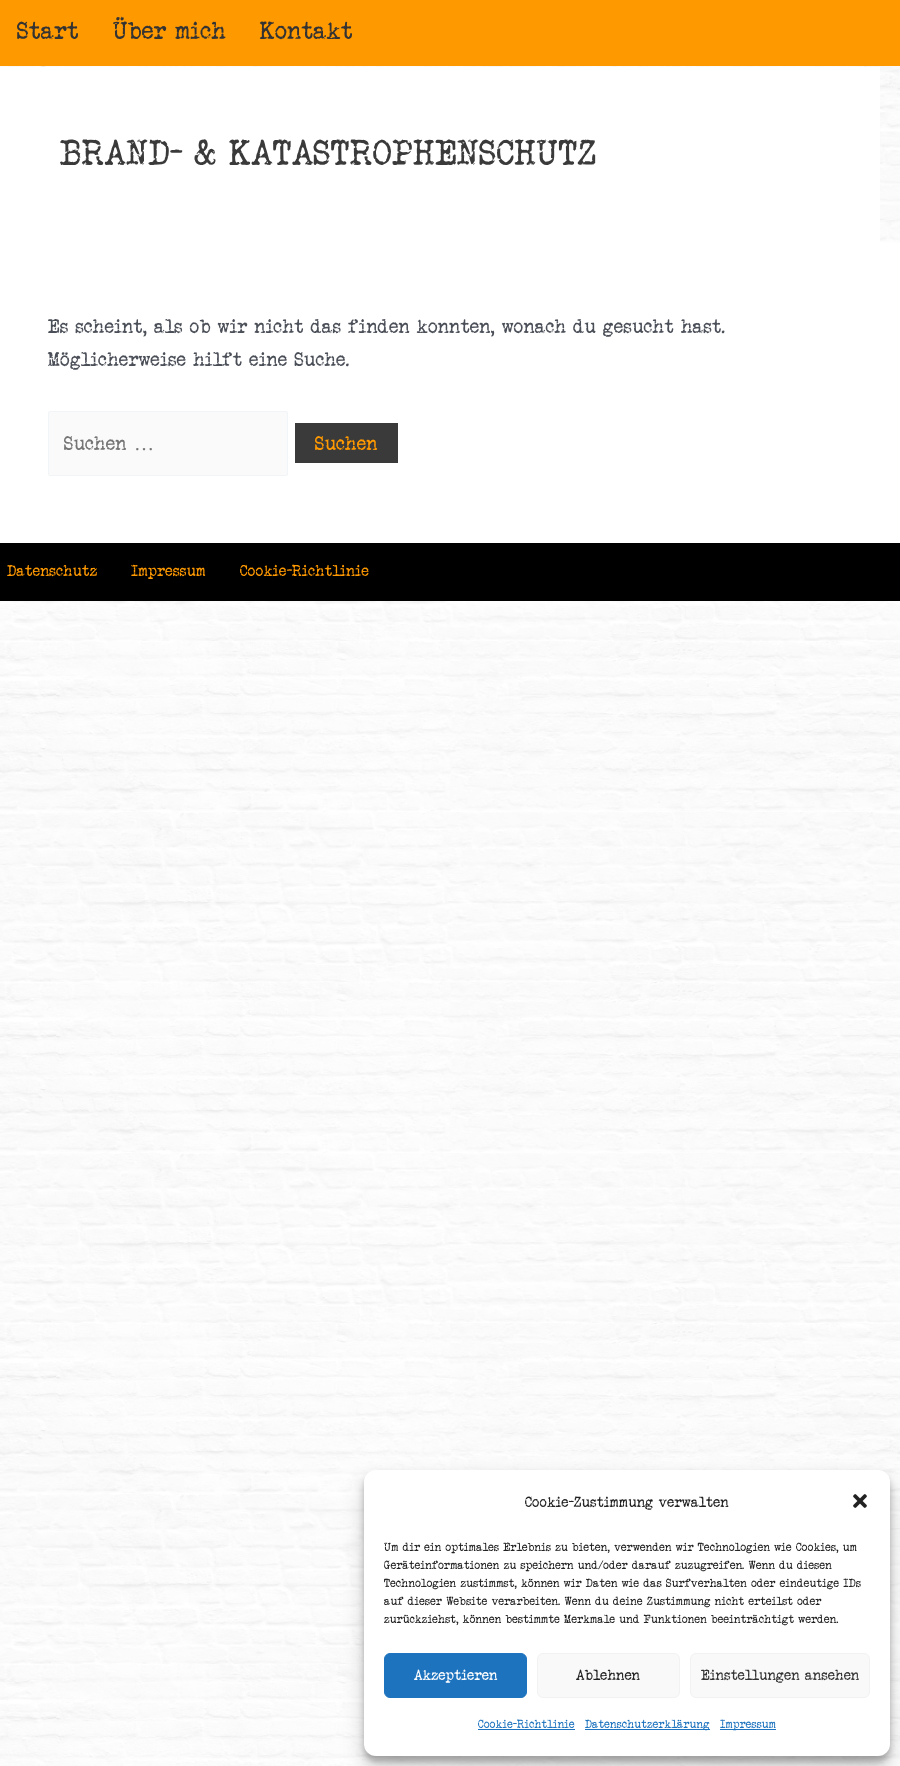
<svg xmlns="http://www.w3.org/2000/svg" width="900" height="1766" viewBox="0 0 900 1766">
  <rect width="100%" height="100%" fill="rgb(255,255,255)"/>
  <image x="0" y="66" width="900" height="1700" href="pic1.png"/>
  <rect x="0" y="0" width="900" height="66" fill="rgb(255,153,0)"/>
  <g font-family="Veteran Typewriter" font-size="25" fill="rgb(51,51,51)">
    <text x="17" y="39">Start</text>
    <text x="113" y="39">Über mich</text>
    <text x="260" y="39">Kontakt</text>
  </g>
  <rect x="0" y="67" width="880" height="176" fill="rgb(255,255,255)"/>
  <text x="60" y="165" font-family="Veteran Typewriter" font-size="36.5" fill="rgb(58,58,58)">BRAND- &amp; KATASTROPHENSCHUTZ</text>
  <rect x="0" y="243" width="900" height="300" fill="rgb(255,255,255)"/>
  <g font-family="Veteran Typewriter" font-size="20.05" fill="rgb(75,79,88)">
    <text>
      <tspan x="48" y="333">Es scheint, als ob wir nicht das finden konnten, wonach du gesucht hast.</tspan>
      <tspan x="48" y="366">Möglicherweise hilft eine Suche.</tspan>
    </text>
  </g>
  <rect x="48.5" y="411.5" width="239" height="64" rx="1.5" fill="rgb(250,250,250)" stroke="rgb(242,245,247)"/>
  <text x="64" y="450" font-family="Veteran Typewriter" font-size="20.05" fill="rgb(117,117,117)">Suchen</text>
  <text x="134" y="450" font-family="Liberation Serif" font-size="20.05" fill="rgb(117,117,117)">…</text>
  <rect x="295" y="423" width="103" height="40" fill="rgb(58,58,58)"/>
  <text x="315" y="450" font-family="Veteran Typewriter" font-size="20.05" fill="rgb(255,153,0)">Suchen</text>
  <rect x="0" y="543" width="900" height="58" fill="rgb(0,0,0)"/>
  <g font-family="Veteran Typewriter" font-size="16" fill="rgb(255,153,0)">
    <text x="7" y="576">Datenschutz</text>
    <text x="131" y="576">Impressum</text>
    <text x="240" y="576">Cookie-Richtlinie</text>
  </g>
  <rect x="364" y="1476" width="526" height="286" rx="12" fill="rgba(0,0,0,0.23)" filter="blur(3px)"/>
  <rect x="364" y="1480" width="526" height="286" rx="12" fill="rgba(0,0,0,0.19)" filter="blur(10px)"/>
  <rect x="364" y="1470" width="526" height="286" rx="12" fill="rgb(255,255,255)"/>
  <text x="525" y="1507" font-family="Veteran Typewriter" font-size="15" fill="rgb(34,34,34)">Cookie-Zustimmung verwalten</text>
  <image x="853" y="1494" width="14" height="14" href="pic2.png"/>
  <g font-family="Veteran Typewriter" font-size="12" fill="rgb(34,34,34)">
    <text>
      <tspan x="384" y="1551">Um dir ein optimales Erlebnis zu bieten, verwenden wir Technologien wie Cookies, um</tspan>
      <tspan x="384" y="1569">Geräteinformationen zu speichern und/oder darauf zuzugreifen. Wenn du diesen</tspan>
      <tspan x="384" y="1587">Technologien zustimmst, können wir Daten wie das Surfverhalten oder eindeutige IDs</tspan>
      <tspan x="384" y="1605">auf dieser Website verarbeiten. Wenn du deine Zustimmung nicht erteilst oder</tspan>
      <tspan x="384" y="1623">zurückziehst, können bestimmte Merkmale und Funktionen beeinträchtigt werden.</tspan>
    </text>
  </g>
  <rect x="384.5" y="1653.5" width="142" height="44" rx="5.5" fill="rgb(30,115,190)" stroke="rgb(30,115,190)"/>
  <text x="414" y="1680" font-family="Veteran Typewriter" font-size="15" fill="rgb(255,255,255)">Akzeptieren</text>
  <rect x="537.5" y="1653.5" width="142" height="44" rx="5.5" fill="rgb(249,249,249)" stroke="rgb(242,242,242)"/>
  <text x="576" y="1680" font-family="Veteran Typewriter" font-size="15" fill="rgb(34,34,34)">Ablehnen</text>
  <rect x="690.5" y="1653.5" width="179" height="44" rx="5.5" fill="rgb(249,249,249)" stroke="rgb(242,242,242)"/>
  <text x="701" y="1680" font-family="Veteran Typewriter" font-size="15" fill="rgb(51,51,51)">Einstellungen ansehen</text>
  <text x="478" y="1728" font-family="Veteran Typewriter" font-size="12" fill="rgb(30,115,190)">Cookie-Richtlinie</text>
  <rect x="478" y="1729" width="97" height="1" fill="rgb(30,115,190)"/>
  <rect x="585" y="1729" width="125" height="1" fill="rgb(30,115,190)"/>
  <text x="585" y="1728" font-family="Veteran Typewriter" font-size="12" fill="rgb(30,115,190)">Datenschutzerklärung</text>
  <rect x="720" y="1729" width="56" height="1" fill="rgb(30,115,190)"/>
  <text x="720" y="1728" font-family="Veteran Typewriter" font-size="12" fill="rgb(30,115,190)">Impressum</text>
</svg>
